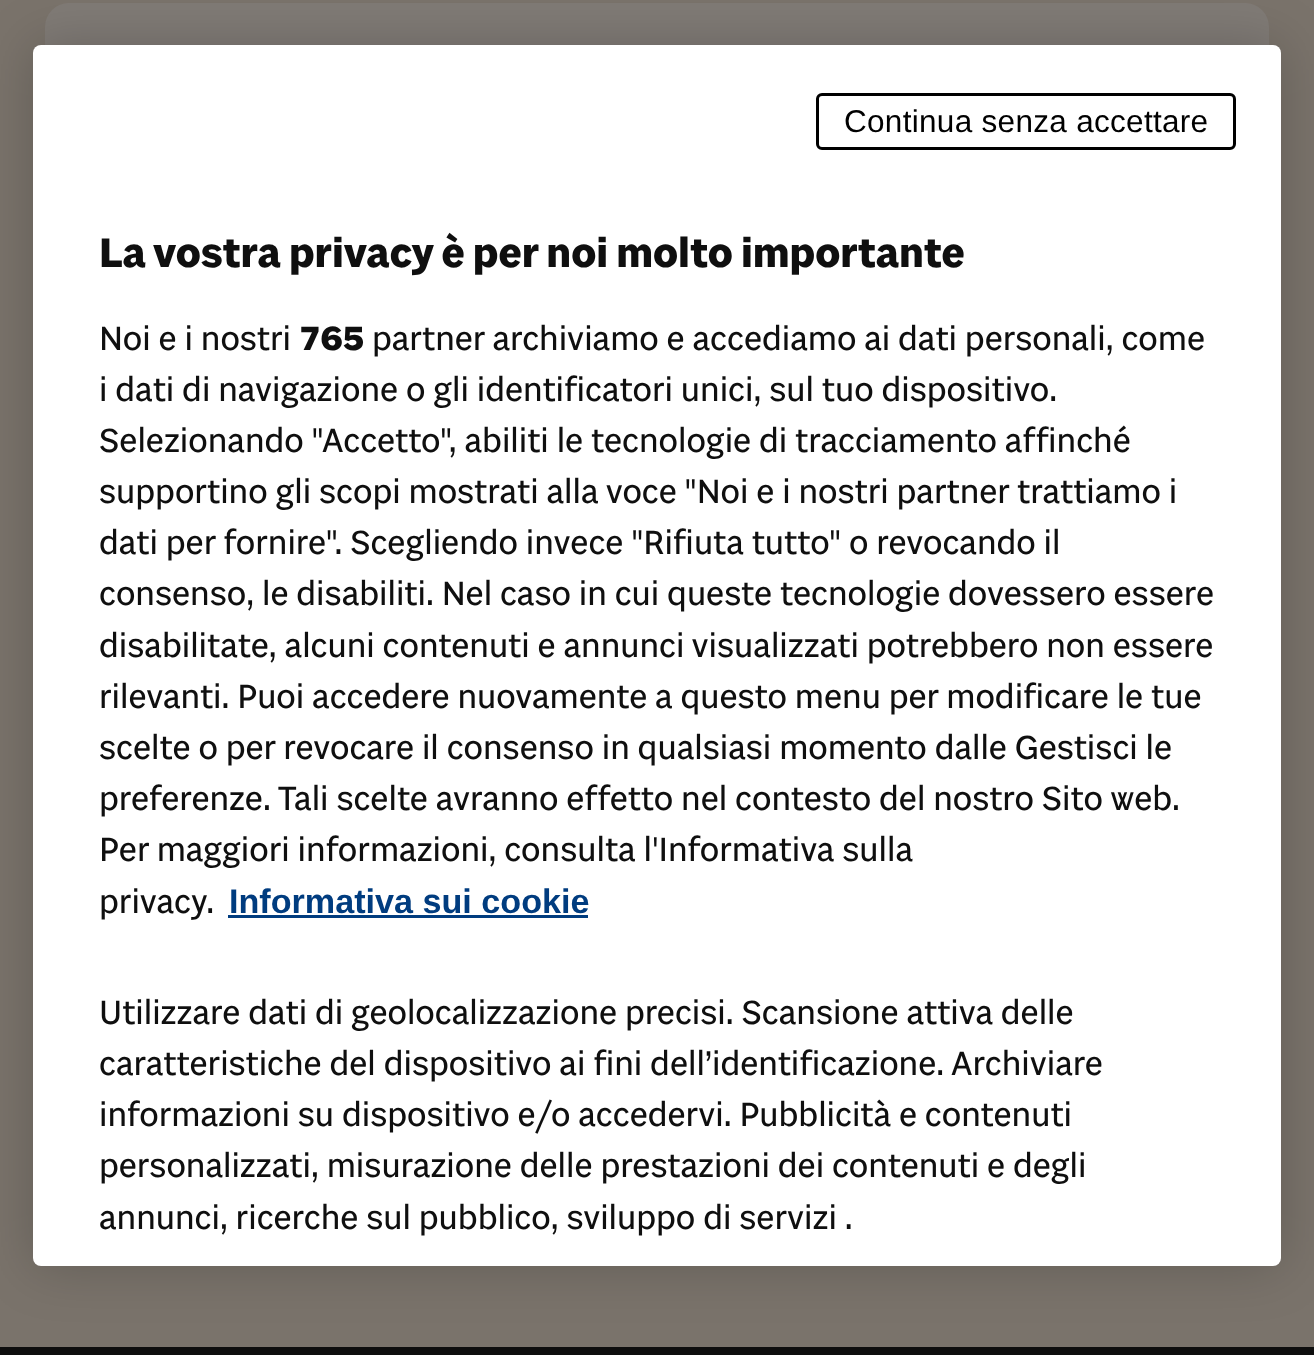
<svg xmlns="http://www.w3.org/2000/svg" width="1314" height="1355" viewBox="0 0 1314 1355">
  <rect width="100%" height="100%" fill="rgb(122,115,107)"/>
  <rect x="45" y="3" width="1224" height="654" rx="24" fill="rgb(128,123,118)"/>
  <rect x="0" y="1347" width="1314" height="8" fill="rgb(14,14,14)"/>
  <rect x="33" y="45" width="1248" height="1221" rx="8" fill="rgba(0,0,0,0.2)" filter="blur(27px)"/>
  <rect x="33" y="45" width="1248" height="1221" rx="8" fill="rgb(255,255,255)"/>
  <rect x="817.5" y="94.5" width="417" height="54" rx="4.5" fill="none" stroke="rgb(0,0,0)" stroke-width="3"/>
  <text x="844" y="132" font-family="Liberation Sans" font-size="31.5" letter-spacing="0.3" fill="rgb(0,0,0)">Continua senza accettare</text>
  <text x="99" y="267" font-family="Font" font-size="42" font-weight="bold" fill="rgb(15,15,15)">La vostra privacy è per noi molto importante</text>
  <text x="99" y="350" font-family="Font" font-size="34.15" fill="rgb(15,15,15)">Noi e i nostri</text>
  <text x="299" y="350" font-family="Font" font-size="34.15" font-weight="bold" fill="rgb(15,15,15)">765</text>
  <g font-family="Font" font-size="34.15" fill="rgb(15,15,15)">
    <text x="372" y="350">partner archiviamo e accediamo ai dati personali, come</text>
    <text>
      <tspan x="99" y="401">i dati di navigazione o gli identificatori unici, sul tuo dispositivo.</tspan>
      <tspan x="99" y="452">Selezionando "Accetto", abiliti le tecnologie di tracciamento affinché</tspan>
      <tspan x="99" y="503">supportino gli scopi mostrati alla voce "Noi e i nostri partner trattiamo i</tspan>
      <tspan x="99" y="554">dati per fornire". Scegliendo invece "Rifiuta tutto" o revocando il</tspan>
      <tspan x="99" y="605">consenso, le disabiliti. Nel caso in cui queste tecnologie dovessero essere</tspan>
      <tspan x="99" y="657">disabilitate, alcuni contenuti e annunci visualizzati potrebbero non essere</tspan>
      <tspan x="99" y="708">rilevanti. Puoi accedere nuovamente a questo menu per modificare le tue</tspan>
      <tspan x="99" y="759">scelte o per revocare il consenso in qualsiasi momento dalle Gestisci le</tspan>
      <tspan x="99" y="810">preferenze. Tali scelte avranno effetto nel contesto del nostro Sito web.</tspan>
      <tspan x="99" y="861">Per maggiori informazioni, consulta l'Informativa sulla</tspan>
      <tspan x="99" y="913">privacy.</tspan>
    </text>
  </g>
  <text x="229" y="913" font-family="Liberation Sans" font-size="34.15" font-weight="bold" fill="rgb(0,60,127)">Informativa sui cookie</text>
  <rect x="228" y="915" width="360" height="3" fill="rgb(0,60,127)"/>
  <g font-family="Font" font-size="34.15" fill="rgb(15,15,15)">
    <text>
      <tspan x="99" y="1024">Utilizzare dati di geolocalizzazione precisi. Scansione attiva delle</tspan>
      <tspan x="99" y="1075">caratteristiche del dispositivo ai fini dell’identificazione. Archiviare</tspan>
      <tspan x="99" y="1126">informazioni su dispositivo e/o accedervi. Pubblicità e contenuti</tspan>
      <tspan x="99" y="1177">personalizzati, misurazione delle prestazioni dei contenuti e degli</tspan>
      <tspan x="99" y="1229">annunci, ricerche sul pubblico, sviluppo di servizi .</tspan>
    </text>
  </g>
</svg>
